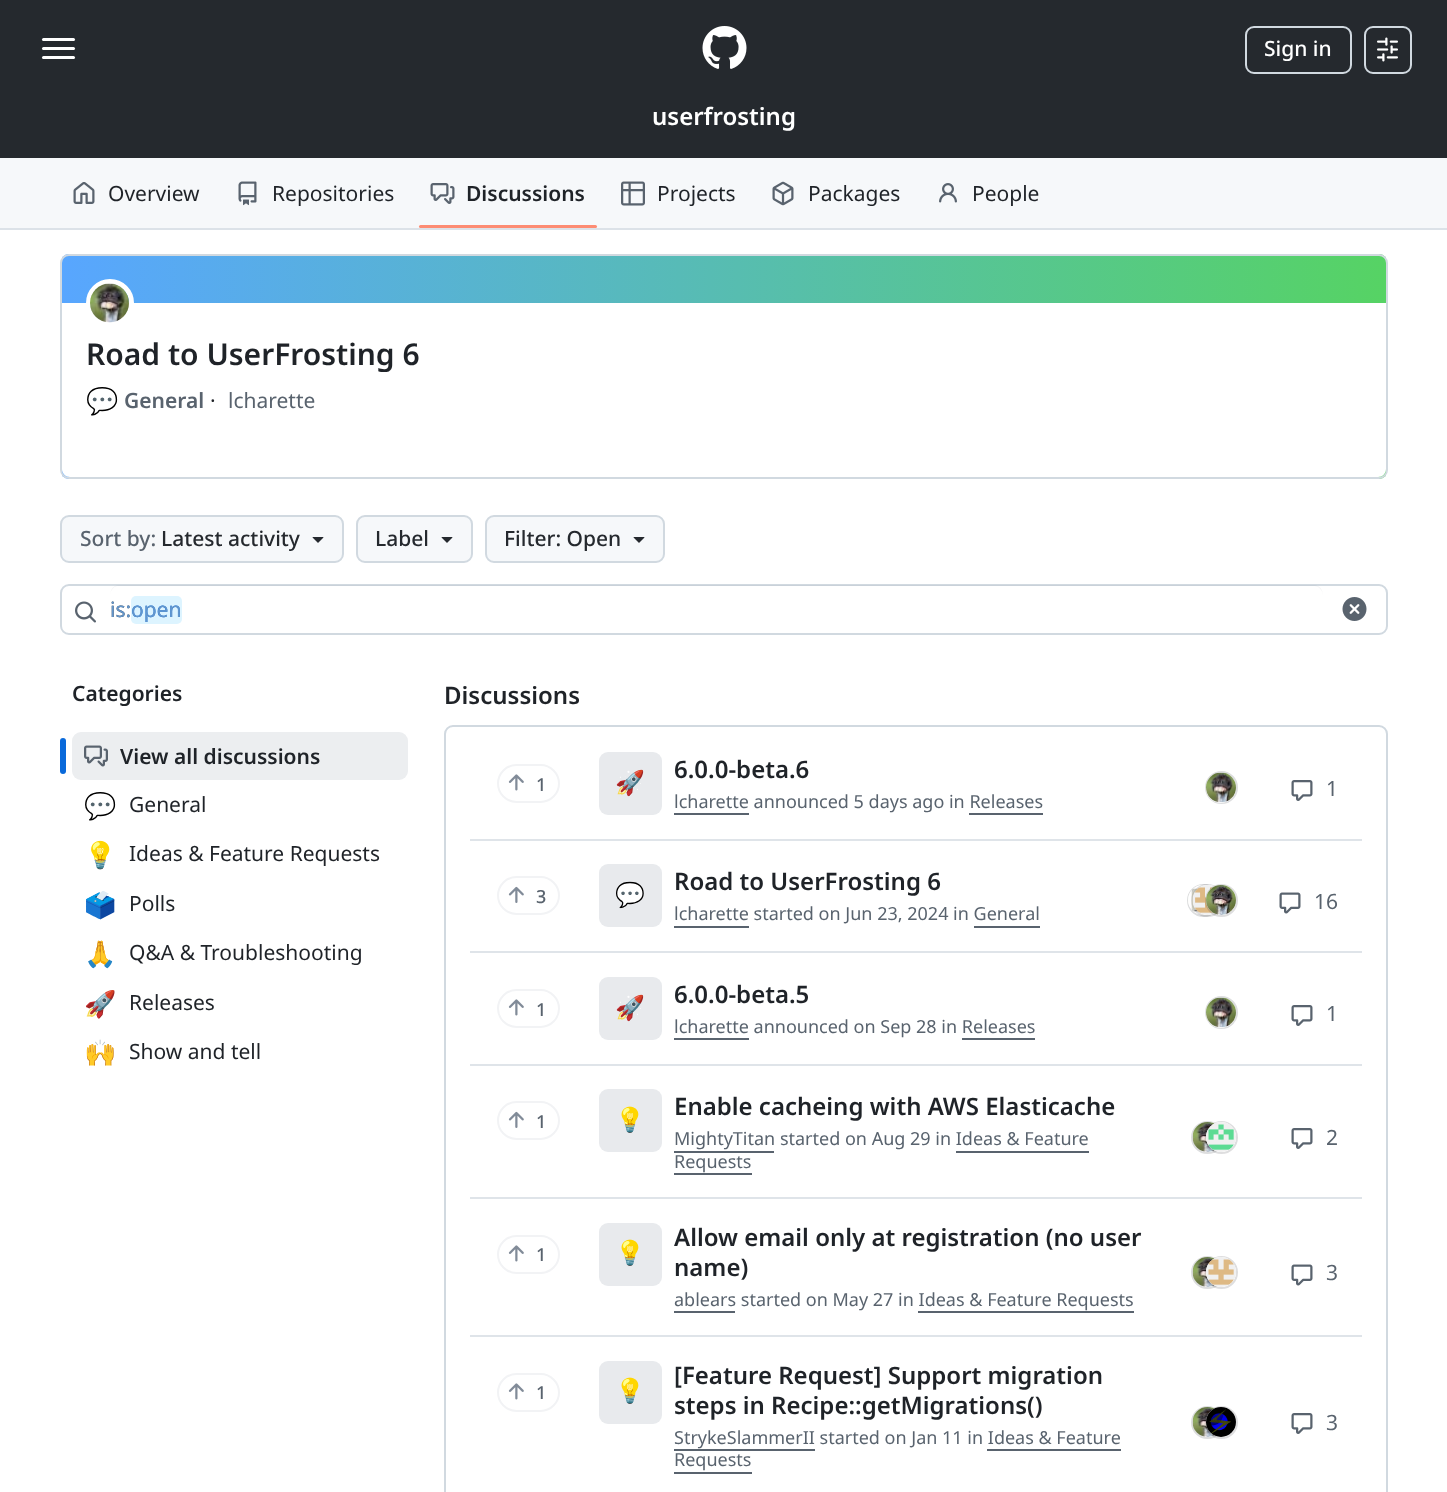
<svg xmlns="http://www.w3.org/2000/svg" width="1447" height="1492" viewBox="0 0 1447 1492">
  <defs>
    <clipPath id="clip1"><rect x="60" y="254" width="1328" height="225" rx="9"/></clipPath>
    <linearGradient id="g1" gradientUnits="userSpaceOnUse" x1="62" y1="366" x2="1386" y2="366"><stop offset="0" stop-color="rgb(88,166,255)"/><stop offset="1" stop-color="rgb(86,211,100)"/></linearGradient>
    <clipPath id="clip2"><rect x="86" y="335" width="1276" height="37"/></clipPath>
    <clipPath id="clip3"><rect x="86" y="384" width="118" height="32"/></clipPath>
  </defs>
  <rect width="100%" height="100%" fill="rgb(255,255,255)"/>
  <rect x="0" y="0" width="1447" height="158" fill="rgb(37,41,46)"/>
  <rect x="42" y="38" width="33" height="3" rx="1.5" fill="rgb(255,255,255)"/>
  <rect x="42" y="47" width="33" height="3" rx="1.5" fill="rgb(255,255,255)"/>
  <rect x="42" y="56" width="33" height="3" rx="1.5" fill="rgb(255,255,255)"/>
  <image x="702" y="26" width="45" height="43" href="pic1.png"/>
  <rect x="1246" y="27" width="105" height="46" rx="8" fill="none" stroke="rgb(209,217,224)" stroke-width="2"/>
  <text x="1264" y="56" font-family="Noto Sans" font-size="21" font-weight="500" fill="rgb(255,255,255)">Sign in</text>
  <rect x="1365" y="27" width="46" height="46" rx="8" fill="none" stroke="rgb(209,217,224)" stroke-width="2"/>
  <image x="1377" y="37" width="21" height="25" href="pic2.png"/>
  <text x="652" y="125" font-family="Noto Sans" font-size="24" font-weight="600" fill="rgb(255,255,255)">userfrosting</text>
  <rect x="0" y="158" width="1447" height="70" fill="rgb(246,248,250)"/>
  <rect x="0" y="228" width="1447" height="2" fill="rgb(220,226,232)"/>
  <image x="73" y="182" width="22" height="22" href="pic3.png"/>
  <text x="108" y="201" font-family="Noto Sans" font-size="21" fill="rgb(31,35,40)">Overview</text>
  <image x="238" y="181" width="19" height="25" href="pic4.png"/>
  <text x="272" y="201" font-family="Noto Sans" font-size="21" fill="rgb(31,35,40)">Repositories</text>
  <image x="430" y="183" width="25" height="21" href="pic5.png"/>
  <text x="466" y="201" font-family="Noto Sans" font-size="21" font-weight="600" fill="rgb(31,35,40)">Discussions</text>
  <rect x="419" y="225" width="178" height="3" rx="1.5" fill="rgb(253,140,115)"/>
  <image x="621" y="181" width="24" height="25" href="pic6.png"/>
  <text x="657" y="201" font-family="Noto Sans" font-size="21" fill="rgb(31,35,40)">Projects</text>
  <image x="772" y="181" width="22" height="25" href="pic7.png"/>
  <text x="808" y="201" font-family="Noto Sans" font-size="21" fill="rgb(31,35,40)">Packages</text>
  <image x="939" y="183" width="18" height="20" href="pic8.png"/>
  <text x="972" y="201" font-family="Noto Sans" font-size="21" fill="rgb(31,35,40)">People</text>
  <g clip-path="url(#clip1)">
    <rect x="62" y="254" width="1324" height="225" fill="url(#g1)"/>
  </g>
  <rect x="61" y="255" width="1326" height="223" rx="8" fill="none" stroke="rgb(209,217,224)" stroke-width="2"/>
  <path d="M62 303H1386V469C1386 473.5 1382.5 477 1378 477H70C65.5 477 62 473.5 62 469Z" fill="rgb(255,255,255)"/>
  <circle cx="110" cy="303" r="21.5" fill="none" stroke="rgb(255,255,255)" stroke-width="5"/>
  <image x="90" y="283" width="39" height="40" href="pic9.png"/>
  <g clip-path="url(#clip2)">
    <text x="86" y="365" font-family="Noto Sans" font-size="30" font-weight="600" fill="rgb(31,35,40)">Road to UserFrosting 6</text>
  </g>
  <g clip-path="url(#clip3)">
    <text x="86" y="410" font-family="Noto Color Emoji" font-size="26" fill="rgb(89,99,110)">💬</text>
  </g>
  <text x="124" y="408" font-family="Noto Sans" font-size="21" font-weight="600" fill="rgb(89,99,110)">General</text>
  <text x="210" y="408" font-family="Noto Sans" font-size="21" fill="rgb(31,35,40)">·</text>
  <text x="228" y="408" font-family="Noto Sans" font-size="21" fill="rgb(89,99,110)">lcharette</text>
  <rect x="61" y="516" width="282" height="46" rx="8" fill="rgb(246,248,250)" stroke="rgb(209,217,224)" stroke-width="2"/>
  <text x="80" y="546" font-family="Noto Sans" font-size="21" font-weight="500" fill="rgb(89,99,110)">Sort by:</text>
  <text x="161" y="546" font-family="Noto Sans" font-size="21" font-weight="500" fill="rgb(37,41,46)">Latest activity</text>
  <image x="312" y="537" width="12" height="6" href="pic10.png"/>
  <rect x="357" y="516" width="115" height="46" rx="8" fill="rgb(246,248,250)" stroke="rgb(209,217,224)" stroke-width="2"/>
  <text x="375" y="546" font-family="Noto Sans" font-size="21" font-weight="500" fill="rgb(37,41,46)">Label</text>
  <image x="441" y="537" width="12" height="6" href="pic10.png"/>
  <rect x="486" y="516" width="178" height="46" rx="8" fill="rgb(246,248,250)" stroke="rgb(209,217,224)" stroke-width="2"/>
  <text x="504" y="546" font-family="Noto Sans" font-size="21" font-weight="500" fill="rgb(37,41,46)">Filter: Open</text>
  <image x="633" y="537" width="12" height="6" href="pic10.png"/>
  <rect x="61" y="585" width="1326" height="49" rx="8" fill="none" stroke="rgb(209,217,224)" stroke-width="2"/>
  <image x="75" y="601" width="21" height="22" href="pic11.png"/>
  <text x="110" y="617" font-family="Noto Sans" font-size="21" fill="rgb(31,35,40)">is:</text>
  <rect x="131" y="596" width="51" height="28" rx="5" fill="rgb(221,244,255)"/>
  <text x="131" y="617" font-family="Noto Sans" font-size="21" fill="rgb(9,105,218)">open</text>
  <path d="M118 586H1314C1319 586 1323 591 1323 596C1323 590 1320 585 1314 585H119C113 585 110 590 110 596C110 591 114 586 118 586Z" fill="rgba(31,35,40,0.04)"/>
  <text x="110" y="617" font-family="Noto Sans" font-size="21" fill="rgb(99,150,204)">is:open</text>
  <image x="1342" y="597" width="25" height="24" href="pic12.png"/>
  <text x="72" y="701" font-family="Noto Sans" font-size="21" font-weight="600" fill="rgb(31,35,40)">Categories</text>
  <rect x="72" y="732" width="336" height="48" rx="9" fill="rgb(236,238,240)"/>
  <rect x="60" y="738" width="6" height="36" rx="3" fill="rgb(9,105,218)"/>
  <image x="84" y="745" width="24" height="22" href="pic13.png"/>
  <text x="120" y="764" font-family="Noto Sans" font-size="21" font-weight="600" fill="rgb(31,35,40)">View all discussions</text>
  <text x="84" y="815" font-family="Noto Color Emoji" font-size="26" fill="rgb(89,99,110)">💬</text>
  <text x="129" y="812" font-family="Noto Sans" font-size="21" fill="rgb(31,35,40)">General</text>
  <text x="84" y="864" font-family="Noto Color Emoji" font-size="26" fill="rgb(89,99,110)">💡</text>
  <text x="129" y="861" font-family="Noto Sans" font-size="21" fill="rgb(31,35,40)">Ideas &amp; Feature Requests</text>
  <text x="84" y="914" font-family="Noto Color Emoji" font-size="26" fill="rgb(89,99,110)">🗳️</text>
  <text x="129" y="911" font-family="Noto Sans" font-size="21" fill="rgb(31,35,40)">Polls</text>
  <text x="84" y="963" font-family="Noto Color Emoji" font-size="26" fill="rgb(89,99,110)">🙏</text>
  <text x="129" y="960" font-family="Noto Sans" font-size="21" fill="rgb(31,35,40)">Q&amp;A &amp; Troubleshooting</text>
  <text x="84" y="1013" font-family="Noto Color Emoji" font-size="26" fill="rgb(89,99,110)">🚀</text>
  <text x="129" y="1010" font-family="Noto Sans" font-size="21" fill="rgb(31,35,40)">Releases</text>
  <text x="84" y="1062" font-family="Noto Color Emoji" font-size="26" fill="rgb(89,99,110)">🙌</text>
  <text x="129" y="1059" font-family="Noto Sans" font-size="21" fill="rgb(31,35,40)">Show and tell</text>
  <text x="444" y="704" font-family="Noto Sans" font-size="24" font-weight="600" fill="rgb(31,35,40)">Discussions</text>
  <rect x="445" y="726" width="942" height="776" rx="8" fill="none" stroke="rgb(209,217,224)" stroke-width="2"/>
  <rect x="498" y="765" width="61" height="37" rx="18.5" fill="none" stroke="rgb(242,243,245)" stroke-width="2"/>
  <image x="508" y="774" width="16" height="17" href="pic14.png"/>
  <text x="536" y="791" font-family="Noto Sans" font-size="18" font-weight="500" fill="rgb(89,99,110)">1</text>
  <rect x="599" y="752" width="63" height="63" rx="9" fill="rgb(232,234,237)"/>
  <text x="615" y="791" font-family="Noto Color Emoji" font-size="24" fill="rgb(89,99,110)">🚀</text>
  <text x="674" y="778" font-family="Noto Sans" font-size="24" font-weight="600" fill="rgb(31,35,40)">6.0.0-beta.6</text>
  <text x="674" y="808" font-family="Noto Sans" font-size="18" fill="rgb(89,99,110)">lcharette announced 5 days ago in Releases</text>
  <rect x="674" y="813" width="75" height="2" fill="rgb(89,99,110)"/>
  <rect x="969" y="813" width="74" height="2" fill="rgb(89,99,110)"/>
  <circle cx="1221.5" cy="787.5" r="15.5" fill="none" stroke="rgb(221,222,223)" stroke-width="2"/>
  <circle cx="1221" cy="788" r="15" fill="rgb(255,255,255)"/>
  <image x="1206" y="772" width="30" height="31" href="pic15.png"/>
  <image x="1291" y="780" width="22" height="21" href="pic16.png"/>
  <text x="1326" y="796" font-family="Noto Sans" font-size="21" fill="rgb(89,99,110)">1</text>
  <rect x="470" y="839" width="892" height="2" fill="rgb(223,228,233)"/>
  <rect x="498" y="877" width="61" height="37" rx="18.5" fill="none" stroke="rgb(242,243,245)" stroke-width="2"/>
  <image x="508" y="886" width="16" height="17" href="pic17.png"/>
  <text x="536" y="903" font-family="Noto Sans" font-size="18" font-weight="500" fill="rgb(89,99,110)">3</text>
  <rect x="599" y="864" width="63" height="63" rx="9" fill="rgb(232,234,237)"/>
  <text x="615" y="903" font-family="Noto Color Emoji" font-size="24" fill="rgb(89,99,110)">💬</text>
  <text x="674" y="890" font-family="Noto Sans" font-size="24" font-weight="600" fill="rgb(31,35,40)">Road to UserFrosting 6</text>
  <text x="674" y="920" font-family="Noto Sans" font-size="18" fill="rgb(89,99,110)">lcharette started on Jun 23, 2024 in General</text>
  <rect x="674" y="926" width="75" height="2" fill="rgb(89,99,110)"/>
  <rect x="974" y="926" width="66" height="2" fill="rgb(89,99,110)"/>
  <circle cx="1203.5" cy="900.5" r="15.5" fill="none" stroke="rgb(221,222,223)" stroke-width="2"/>
  <circle cx="1203" cy="900" r="15" fill="rgb(255,255,255)"/>
  <image x="1188" y="885" width="21" height="28" href="pic18.png"/>
  <circle cx="1207.5" cy="900.5" r="15.5" fill="none" stroke="rgba(31,35,40,0.15)" stroke-width="2"/>
  <circle cx="1208" cy="900" r="15" fill="rgb(255,255,255)"/>
  <image x="1192" y="885" width="23" height="30" href="pic19.png"/>
  <circle cx="1221.5" cy="900.5" r="15.5" fill="none" stroke="rgba(31,35,40,0.15)" stroke-width="2"/>
  <circle cx="1221" cy="900" r="15" fill="rgb(255,255,255)"/>
  <image x="1206" y="885" width="30" height="30" href="pic20.png"/>
  <image x="1279" y="892" width="22" height="22" href="pic21.png"/>
  <text x="1314" y="909" font-family="Noto Sans" font-size="21" fill="rgb(89,99,110)">16</text>
  <rect x="470" y="951" width="892" height="2" fill="rgb(223,228,233)"/>
  <rect x="498" y="990" width="61" height="37" rx="18.5" fill="none" stroke="rgb(242,243,245)" stroke-width="2"/>
  <image x="508" y="999" width="16" height="17" href="pic14.png"/>
  <text x="536" y="1016" font-family="Noto Sans" font-size="18" font-weight="500" fill="rgb(89,99,110)">1</text>
  <rect x="599" y="977" width="63" height="63" rx="9" fill="rgb(232,234,237)"/>
  <text x="615" y="1016" font-family="Noto Color Emoji" font-size="24" fill="rgb(89,99,110)">🚀</text>
  <text x="674" y="1003" font-family="Noto Sans" font-size="24" font-weight="600" fill="rgb(31,35,40)">6.0.0-beta.5</text>
  <text x="674" y="1033" font-family="Noto Sans" font-size="18" fill="rgb(89,99,110)">lcharette announced on Sep 28 in Releases</text>
  <rect x="674" y="1038" width="75" height="2" fill="rgb(89,99,110)"/>
  <rect x="962" y="1038" width="73" height="2" fill="rgb(89,99,110)"/>
  <circle cx="1221.5" cy="1012.5" r="15.5" fill="none" stroke="rgb(221,222,223)" stroke-width="2"/>
  <circle cx="1221" cy="1013" r="15" fill="rgb(255,255,255)"/>
  <image x="1206" y="997" width="30" height="31" href="pic22.png"/>
  <image x="1291" y="1005" width="22" height="21" href="pic16.png"/>
  <text x="1326" y="1021" font-family="Noto Sans" font-size="21" fill="rgb(89,99,110)">1</text>
  <rect x="470" y="1064" width="892" height="2" fill="rgb(223,228,233)"/>
  <rect x="498" y="1102" width="61" height="37" rx="18.5" fill="none" stroke="rgb(242,243,245)" stroke-width="2"/>
  <image x="508" y="1111" width="16" height="17" href="pic17.png"/>
  <text x="536" y="1128" font-family="Noto Sans" font-size="18" font-weight="500" fill="rgb(89,99,110)">1</text>
  <rect x="599" y="1089" width="63" height="63" rx="9" fill="rgb(232,234,237)"/>
  <text x="615" y="1128" font-family="Noto Color Emoji" font-size="24" fill="rgb(89,99,110)">💡</text>
  <text x="674" y="1115" font-family="Noto Sans" font-size="24" font-weight="600" fill="rgb(31,35,40)">Enable cacheing with AWS Elasticache</text>
  <text x="674" y="1145" font-family="Noto Sans" font-size="18" fill="rgb(89,99,110)">MightyTitan started on Aug 29 in Ideas &amp; Feature</text>
  <rect x="674" y="1151" width="100" height="2" fill="rgb(89,99,110)"/>
  <text x="674" y="1168" font-family="Noto Sans" font-size="18" fill="rgb(89,99,110)">Requests</text>
  <rect x="956" y="1151" width="133" height="2" fill="rgb(89,99,110)"/>
  <rect x="674" y="1173" width="78" height="2" fill="rgb(89,99,110)"/>
  <circle cx="1207.5" cy="1137.5" r="15.5" fill="none" stroke="rgb(221,222,223)" stroke-width="2"/>
  <circle cx="1208" cy="1137" r="15" fill="rgb(255,255,255)"/>
  <image x="1192" y="1122" width="23" height="30" href="pic23.png"/>
  <circle cx="1221.5" cy="1137.5" r="15.5" fill="none" stroke="rgba(31,35,40,0.15)" stroke-width="2"/>
  <circle cx="1221" cy="1137" r="15" fill="rgb(255,255,255)"/>
  <image x="1206" y="1122" width="30" height="30" href="pic24.png"/>
  <image x="1291" y="1128" width="22" height="21" href="pic16.png"/>
  <text x="1326" y="1145" font-family="Noto Sans" font-size="21" fill="rgb(89,99,110)">2</text>
  <rect x="470" y="1197" width="892" height="2" fill="rgb(223,228,233)"/>
  <rect x="498" y="1236" width="61" height="37" rx="18.5" fill="none" stroke="rgb(242,243,245)" stroke-width="2"/>
  <image x="508" y="1245" width="16" height="17" href="pic14.png"/>
  <text x="536" y="1261" font-family="Noto Sans" font-size="18" font-weight="500" fill="rgb(89,99,110)">1</text>
  <rect x="599" y="1223" width="63" height="63" rx="9" fill="rgb(232,234,237)"/>
  <text x="615" y="1261" font-family="Noto Color Emoji" font-size="24" fill="rgb(89,99,110)">💡</text>
  <g font-family="Noto Sans" font-size="24" font-weight="600" fill="rgb(31,35,40)">
    <text>
      <tspan x="674" y="1246">Allow email only at registration (no user</tspan>
      <tspan x="674" y="1276">name)</tspan>
    </text>
  </g>
  <text x="674" y="1306" font-family="Noto Sans" font-size="18" fill="rgb(89,99,110)">ablears started on May 27 in Ideas &amp; Feature Requests</text>
  <rect x="674" y="1311" width="61" height="2" fill="rgb(89,99,110)"/>
  <rect x="918" y="1311" width="216" height="2" fill="rgb(89,99,110)"/>
  <circle cx="1207.5" cy="1272.5" r="15.5" fill="none" stroke="rgb(221,222,223)" stroke-width="2"/>
  <circle cx="1208" cy="1272" r="15" fill="rgb(255,255,255)"/>
  <image x="1192" y="1257" width="23" height="30" href="pic25.png"/>
  <circle cx="1221.5" cy="1272.5" r="15.5" fill="none" stroke="rgba(31,35,40,0.15)" stroke-width="2"/>
  <circle cx="1221" cy="1272" r="15" fill="rgb(255,255,255)"/>
  <image x="1206" y="1257" width="30" height="30" href="pic26.png"/>
  <image x="1291" y="1264" width="22" height="22" href="pic21.png"/>
  <text x="1326" y="1280" font-family="Noto Sans" font-size="21" fill="rgb(89,99,110)">3</text>
  <rect x="470" y="1335" width="892" height="2" fill="rgb(223,228,233)"/>
  <rect x="498" y="1374" width="61" height="37" rx="18.5" fill="none" stroke="rgb(242,243,245)" stroke-width="2"/>
  <image x="508" y="1383" width="16" height="17" href="pic14.png"/>
  <text x="536" y="1399" font-family="Noto Sans" font-size="18" font-weight="500" fill="rgb(89,99,110)">1</text>
  <rect x="599" y="1361" width="63" height="63" rx="9" fill="rgb(232,234,237)"/>
  <text x="615" y="1399" font-family="Noto Color Emoji" font-size="24" fill="rgb(89,99,110)">💡</text>
  <g font-family="Noto Sans" font-size="24" font-weight="600" fill="rgb(31,35,40)">
    <text>
      <tspan x="674" y="1384">[Feature Request] Support migration</tspan>
      <tspan x="674" y="1414">steps in Recipe::getMigrations()</tspan>
    </text>
  </g>
  <text x="674" y="1444" font-family="Noto Sans" font-size="18" fill="rgb(89,99,110)">StrykeSlammerII started on Jan 11 in Ideas &amp; Feature</text>
  <rect x="674" y="1449" width="141" height="2" fill="rgb(89,99,110)"/>
  <text x="674" y="1466" font-family="Noto Sans" font-size="18" fill="rgb(89,99,110)">Requests</text>
  <rect x="987" y="1449" width="134" height="2" fill="rgb(89,99,110)"/>
  <rect x="674" y="1472" width="78" height="2" fill="rgb(89,99,110)"/>
  <circle cx="1207.5" cy="1422.5" r="15.5" fill="none" stroke="rgb(221,222,223)" stroke-width="2"/>
  <circle cx="1208" cy="1422" r="15" fill="rgb(255,255,255)"/>
  <image x="1192" y="1407" width="23" height="30" href="pic23.png"/>
  <circle cx="1221.5" cy="1422.5" r="15.5" fill="none" stroke="rgba(31,35,40,0.15)" stroke-width="2"/>
  <circle cx="1221" cy="1422" r="15" fill="rgb(255,255,255)"/>
  <image x="1206" y="1407" width="30" height="30" href="pic27.png"/>
  <image x="1291" y="1413" width="22" height="21" href="pic16.png"/>
  <text x="1326" y="1430" font-family="Noto Sans" font-size="21" fill="rgb(89,99,110)">3</text>
</svg>
